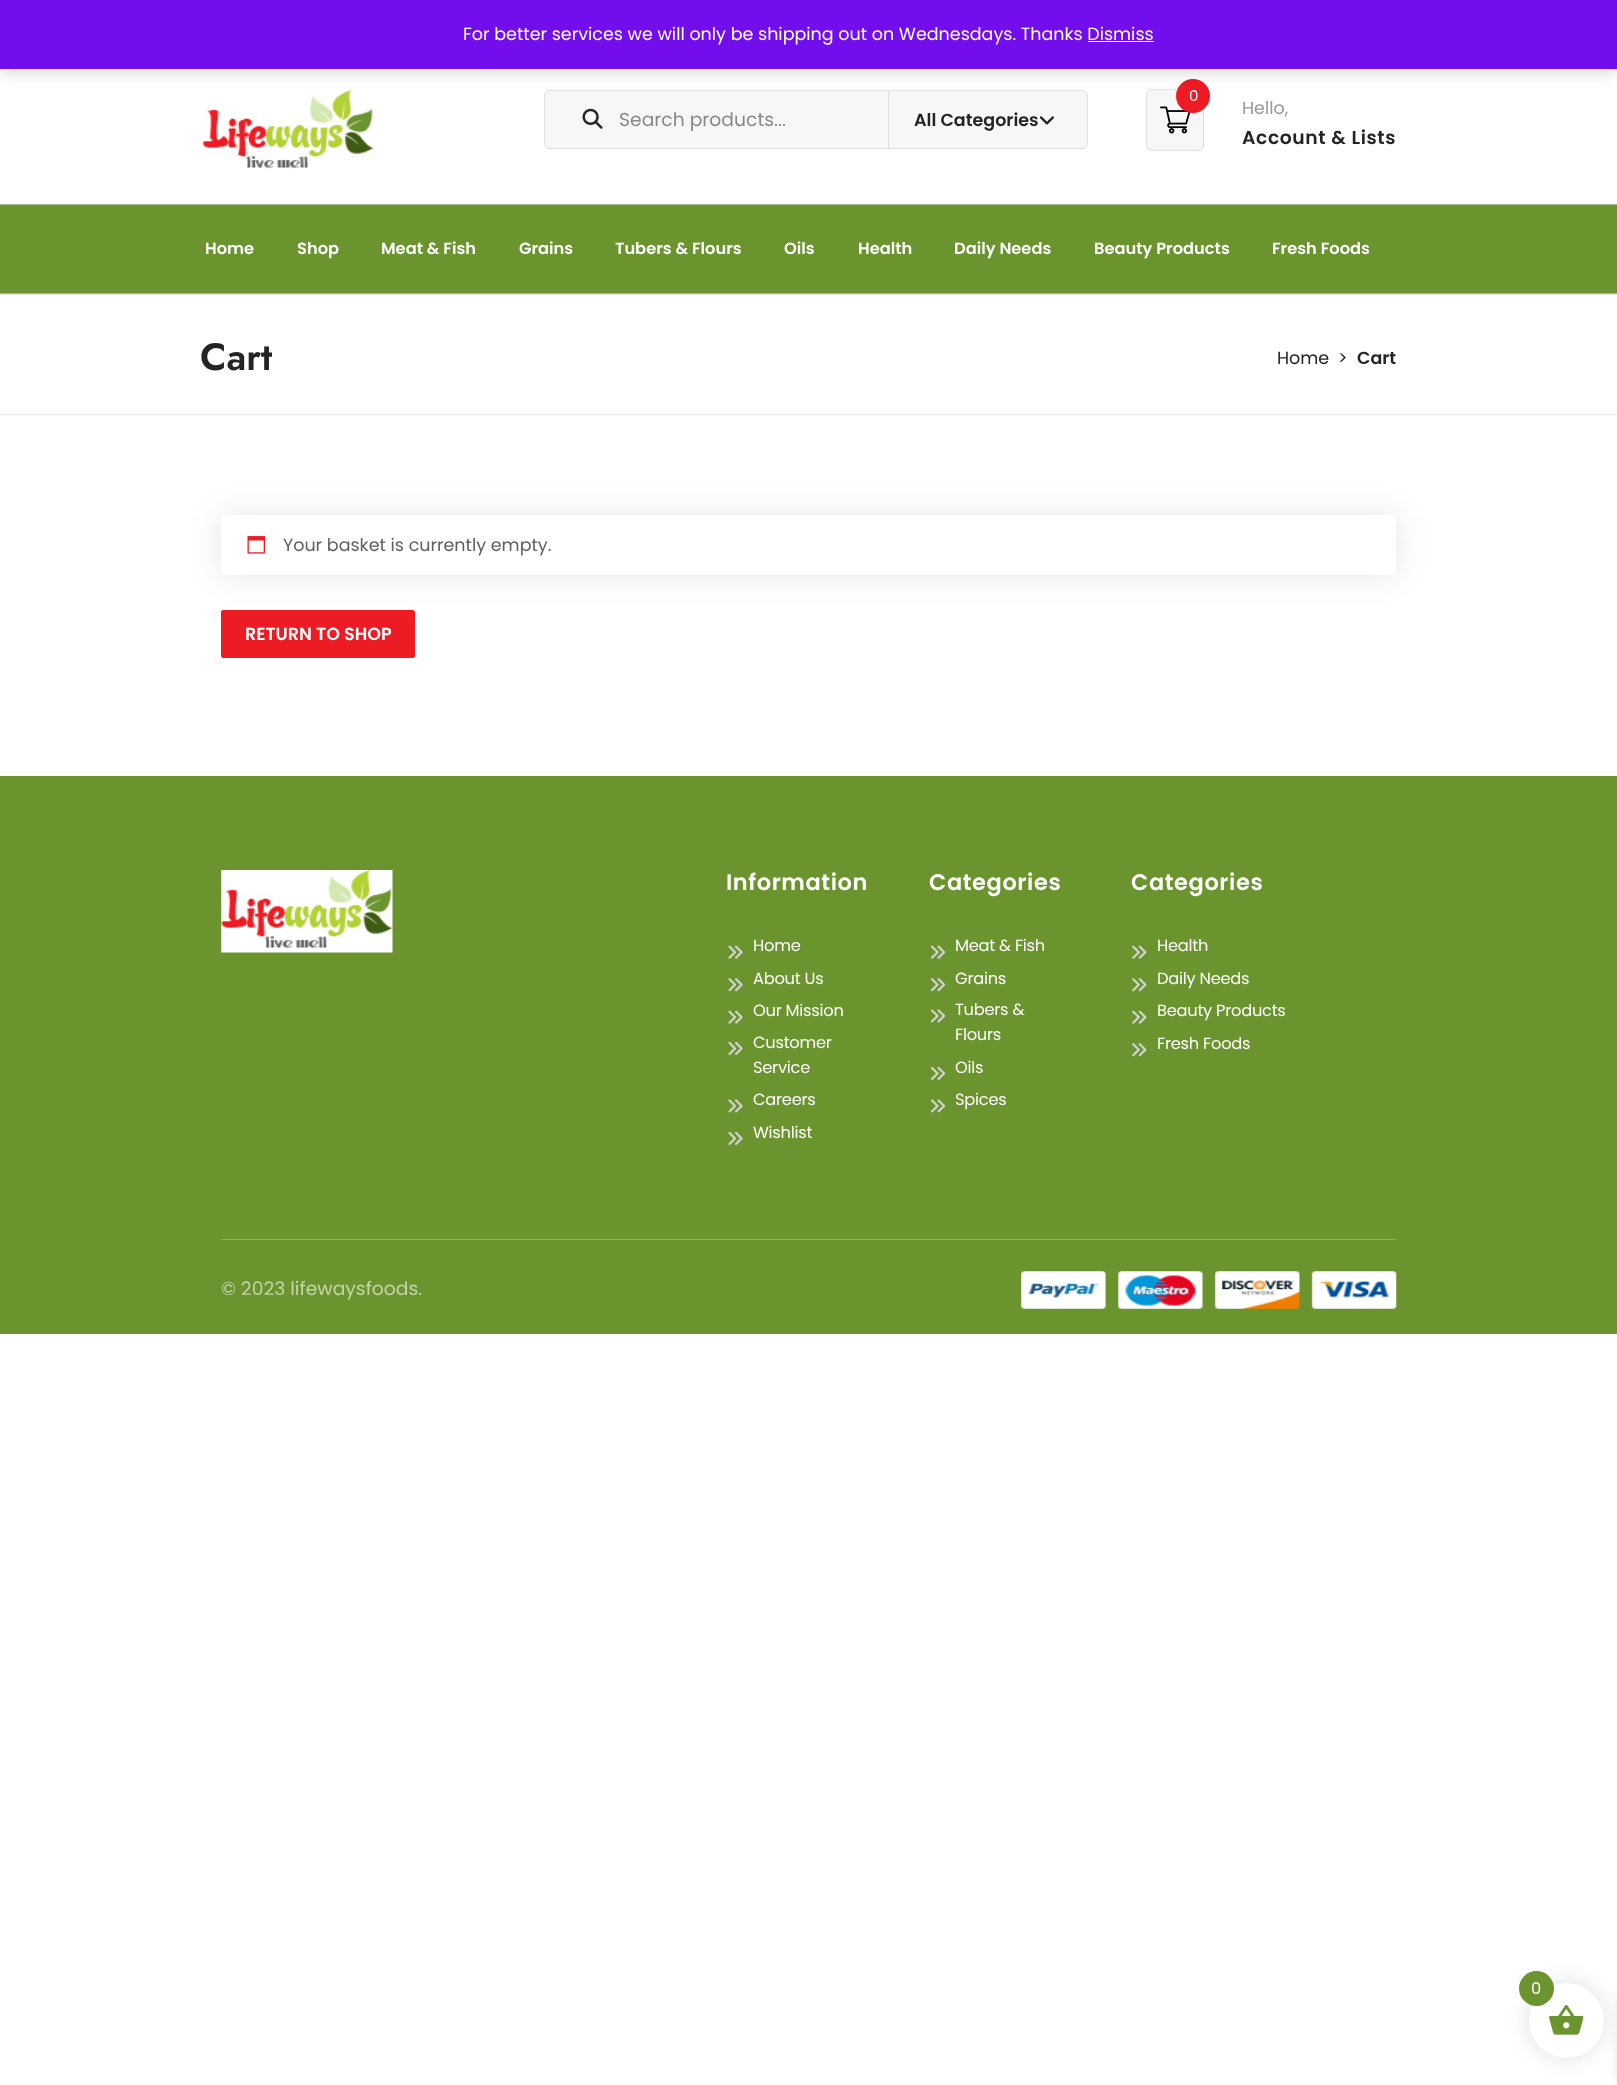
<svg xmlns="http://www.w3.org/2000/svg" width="1617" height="2085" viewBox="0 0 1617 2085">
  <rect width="100%" height="100%" fill="rgb(255,255,255)"/>
  <image x="202" y="90" width="172" height="79" href="pic1.png"/>
  <rect x="544.5" y="90.5" width="543" height="58" rx="5.5" fill="rgb(247,247,247)" stroke="rgb(224,224,224)"/>
  <rect x="888" y="91" width="1" height="57" fill="rgb(221,221,221)"/>
  <rect x="1146.5" y="89.5" width="57" height="61" rx="5.5" fill="rgb(247,247,247)" stroke="rgb(224,224,224)"/>
  <image x="1160" y="106" width="30" height="28" href="pic4.png"/>
  <circle cx="1193" cy="96" r="17" fill="rgb(237,27,36)"/>
  <rect x="0" y="1" width="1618" height="69" fill="rgba(0,0,0,0.2)" filter="blur(9px)"/>
  <rect x="0" y="0" width="1617" height="69" fill="rgb(114,14,236)"/>
  <text x="463" y="40" font-family="Poppins" font-size="17.5" fill="rgb(255,255,255)">For better services we will only be shipping out on Wednesdays. Thanks Dismiss</text>
  <rect x="1088" y="41" width="66" height="1" fill="rgb(252,251,254)"/>
  <image x="582" y="108" width="21" height="21" href="pic2.png"/>
  <text x="619" y="126" font-family="Poppins" font-size="18.75" fill="rgb(136,136,136)">Search products...</text>
  <text x="914" y="126" font-family="Poppins" font-size="17.5" font-weight="600" fill="rgb(36,36,36)">All Categories</text>
  <image x="1039" y="116" width="15" height="9" href="pic3.png"/>
  <text x="1189" y="101" font-family="Poppins" font-size="15" fill="rgb(255,255,255)">0</text>
  <text x="1242" y="114" font-family="Poppins" font-size="17.5" fill="rgb(153,153,153)">Hello,</text>
  <text x="1242" y="144" font-family="Poppins" font-size="18.75" font-weight="600" letter-spacing="0.6" fill="rgb(36,36,36)">Account &amp; Lists</text>
  <rect x="0" y="205" width="1617" height="88" fill="rgb(107,148,46)"/>
  <rect x="0" y="204" width="1617" height="1" fill="rgb(163,184,132)"/>
  <rect x="0" y="293" width="1617" height="1" fill="rgb(163,184,132)"/>
  <g font-family="Poppins" font-size="16.25" font-weight="600" fill="rgb(255,255,255)">
    <text x="205" y="254">Home</text>
    <text x="297" y="254">Shop</text>
    <text x="381" y="254">Meat &amp; Fish</text>
    <text x="519" y="254">Grains</text>
    <text x="615" y="254">Tubers &amp; Flours</text>
    <text x="784" y="254">Oils</text>
    <text x="858" y="254">Health</text>
    <text x="954" y="254">Daily Needs</text>
    <text x="1094" y="254">Beauty Products</text>
    <text x="1272" y="254">Fresh Foods</text>
  </g>
  <rect x="0" y="294" width="1617" height="1" fill="rgb(230,230,230)"/>
  <rect x="0" y="414" width="1617" height="1" fill="rgb(230,230,230)"/>
  <text x="200" y="370" font-family="Jost" font-size="38" font-weight="600" fill="rgb(36,36,36)">Cart</text>
  <g font-family="Poppins" font-size="17.5" fill="rgb(36,36,36)">
    <text x="1277" y="364">Home</text>
    <text x="1338" y="364">&gt;</text>
  </g>
  <text x="1357" y="364" font-family="Poppins" font-size="17.5" font-weight="600" fill="rgb(36,36,36)">Cart</text>
  <rect x="221" y="515" width="1175" height="60" fill="rgba(0,0,0,0.1)" filter="blur(15.5px)"/>
  <rect x="221" y="515" width="1175" height="60" fill="rgb(255,255,255)"/>
  <image x="247" y="536" width="18" height="18" href="pic5.png"/>
  <text x="283" y="551" font-family="Poppins" font-size="17.5" fill="rgb(96,96,96)">Your basket is currently empty.</text>
  <rect x="222.5" y="611.5" width="191" height="45" rx="1" fill="rgb(237,27,36)" stroke="rgb(237,27,36)" stroke-width="3"/>
  <text x="245" y="640" font-family="Poppins" font-size="17.5" font-weight="600" fill="rgb(255,255,255)">RETURN TO SHOP</text>
  <rect x="0" y="776" width="1617" height="558" fill="rgb(107,148,46)"/>
  <image x="221" y="870" width="172" height="83" href="pic6.png"/>
  <text x="726" y="890" font-family="Poppins" font-size="22.5" font-weight="600" letter-spacing="0.6" fill="rgb(255,255,255)">Information</text>
  <image x="728" y="945" width="15" height="14" href="pic7.png"/>
  <text x="753" y="951" font-family="Poppins" font-size="16.25" letter-spacing="-0.25" fill="rgb(255,255,255)">Home</text>
  <image x="728" y="978" width="15" height="14" href="pic8.png"/>
  <text x="753" y="984" font-family="Poppins" font-size="16.25" letter-spacing="-0.25" fill="rgb(255,255,255)">About Us</text>
  <image x="728" y="1010" width="15" height="14" href="pic7.png"/>
  <text x="753" y="1016" font-family="Poppins" font-size="16.25" letter-spacing="-0.25" fill="rgb(255,255,255)">Our Mission</text>
  <image x="728" y="1041" width="15" height="14" href="pic9.png"/>
  <g font-family="Poppins" font-size="16.25" letter-spacing="-0.25" fill="rgb(255,255,255)">
    <text>
      <tspan x="753" y="1048">Customer</tspan>
      <tspan x="753" y="1073">Service</tspan>
    </text>
  </g>
  <image x="728" y="1099" width="15" height="14" href="pic10.png"/>
  <text x="753" y="1105" font-family="Poppins" font-size="16.25" letter-spacing="-0.25" fill="rgb(255,255,255)">Careers</text>
  <image x="728" y="1131" width="15" height="14" href="pic9.png"/>
  <text x="753" y="1138" font-family="Poppins" font-size="16.25" letter-spacing="-0.25" fill="rgb(255,255,255)">Wishlist</text>
  <text x="929" y="890" font-family="Poppins" font-size="22.5" font-weight="600" letter-spacing="0.6" fill="rgb(255,255,255)">Categories</text>
  <image x="931" y="945" width="15" height="14" href="pic11.png"/>
  <text x="955" y="951" font-family="Poppins" font-size="16.25" letter-spacing="-0.25" fill="rgb(255,255,255)">Meat &amp; Fish</text>
  <image x="931" y="978" width="15" height="14" href="pic12.png"/>
  <text x="955" y="984" font-family="Poppins" font-size="16.25" letter-spacing="-0.25" fill="rgb(255,255,255)">Grains</text>
  <image x="931" y="1009" width="15" height="14" href="pic13.png"/>
  <g font-family="Poppins" font-size="16.25" letter-spacing="-0.25" fill="rgb(255,255,255)">
    <text>
      <tspan x="955" y="1015">Tubers &amp;</tspan>
      <tspan x="955" y="1040">Flours</tspan>
    </text>
  </g>
  <image x="931" y="1066" width="15" height="14" href="pic14.png"/>
  <text x="955" y="1073" font-family="Poppins" font-size="16.25" letter-spacing="-0.25" fill="rgb(255,255,255)">Oils</text>
  <image x="931" y="1099" width="15" height="14" href="pic13.png"/>
  <text x="955" y="1105" font-family="Poppins" font-size="16.25" letter-spacing="-0.25" fill="rgb(255,255,255)">Spices</text>
  <text x="1131" y="890" font-family="Poppins" font-size="22.5" font-weight="600" letter-spacing="0.6" fill="rgb(255,255,255)">Categories</text>
  <image x="1132" y="945" width="15" height="14" href="pic15.png"/>
  <text x="1157" y="951" font-family="Poppins" font-size="16.25" letter-spacing="-0.25" fill="rgb(255,255,255)">Health</text>
  <image x="1132" y="978" width="15" height="14" href="pic16.png"/>
  <text x="1157" y="984" font-family="Poppins" font-size="16.25" letter-spacing="-0.25" fill="rgb(255,255,255)">Daily Needs</text>
  <image x="1132" y="1010" width="15" height="14" href="pic15.png"/>
  <text x="1157" y="1016" font-family="Poppins" font-size="16.25" letter-spacing="-0.25" fill="rgb(255,255,255)">Beauty Products</text>
  <image x="1132" y="1043" width="15" height="14" href="pic16.png"/>
  <text x="1157" y="1049" font-family="Poppins" font-size="16.25" letter-spacing="-0.25" fill="rgb(255,255,255)">Fresh Foods</text>
  <rect x="221" y="1239" width="1175" height="1" fill="rgb(149,177,108)"/>
  <text x="221" y="1295" font-family="Poppins" font-size="18.75" fill="rgb(196,212,171)">© 2023 lifewaysfoods.</text>
  <image x="1021" y="1271" width="376" height="38" href="pic17.png"/>
  <rect x="1526" y="1980" width="80" height="80" rx="40" fill="rgba(0,0,0,0.1)" filter="blur(9.5px)"/>
  <rect x="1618" y="1996" width="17" height="88" fill="rgba(0,0,0,0.1)" filter="blur(6px)"/>
  <circle cx="1566.5" cy="2020.5" r="37.5" fill="rgb(255,255,255)"/>
  <image x="1549" y="2005" width="35" height="30" href="pic18.png"/>
  <circle cx="1536.5" cy="1988.5" r="17.5" fill="rgb(107,148,46)"/>
  <text x="1531" y="1994" font-family="Poppins" font-size="16.25" fill="rgb(255,255,255)">0</text>
</svg>
